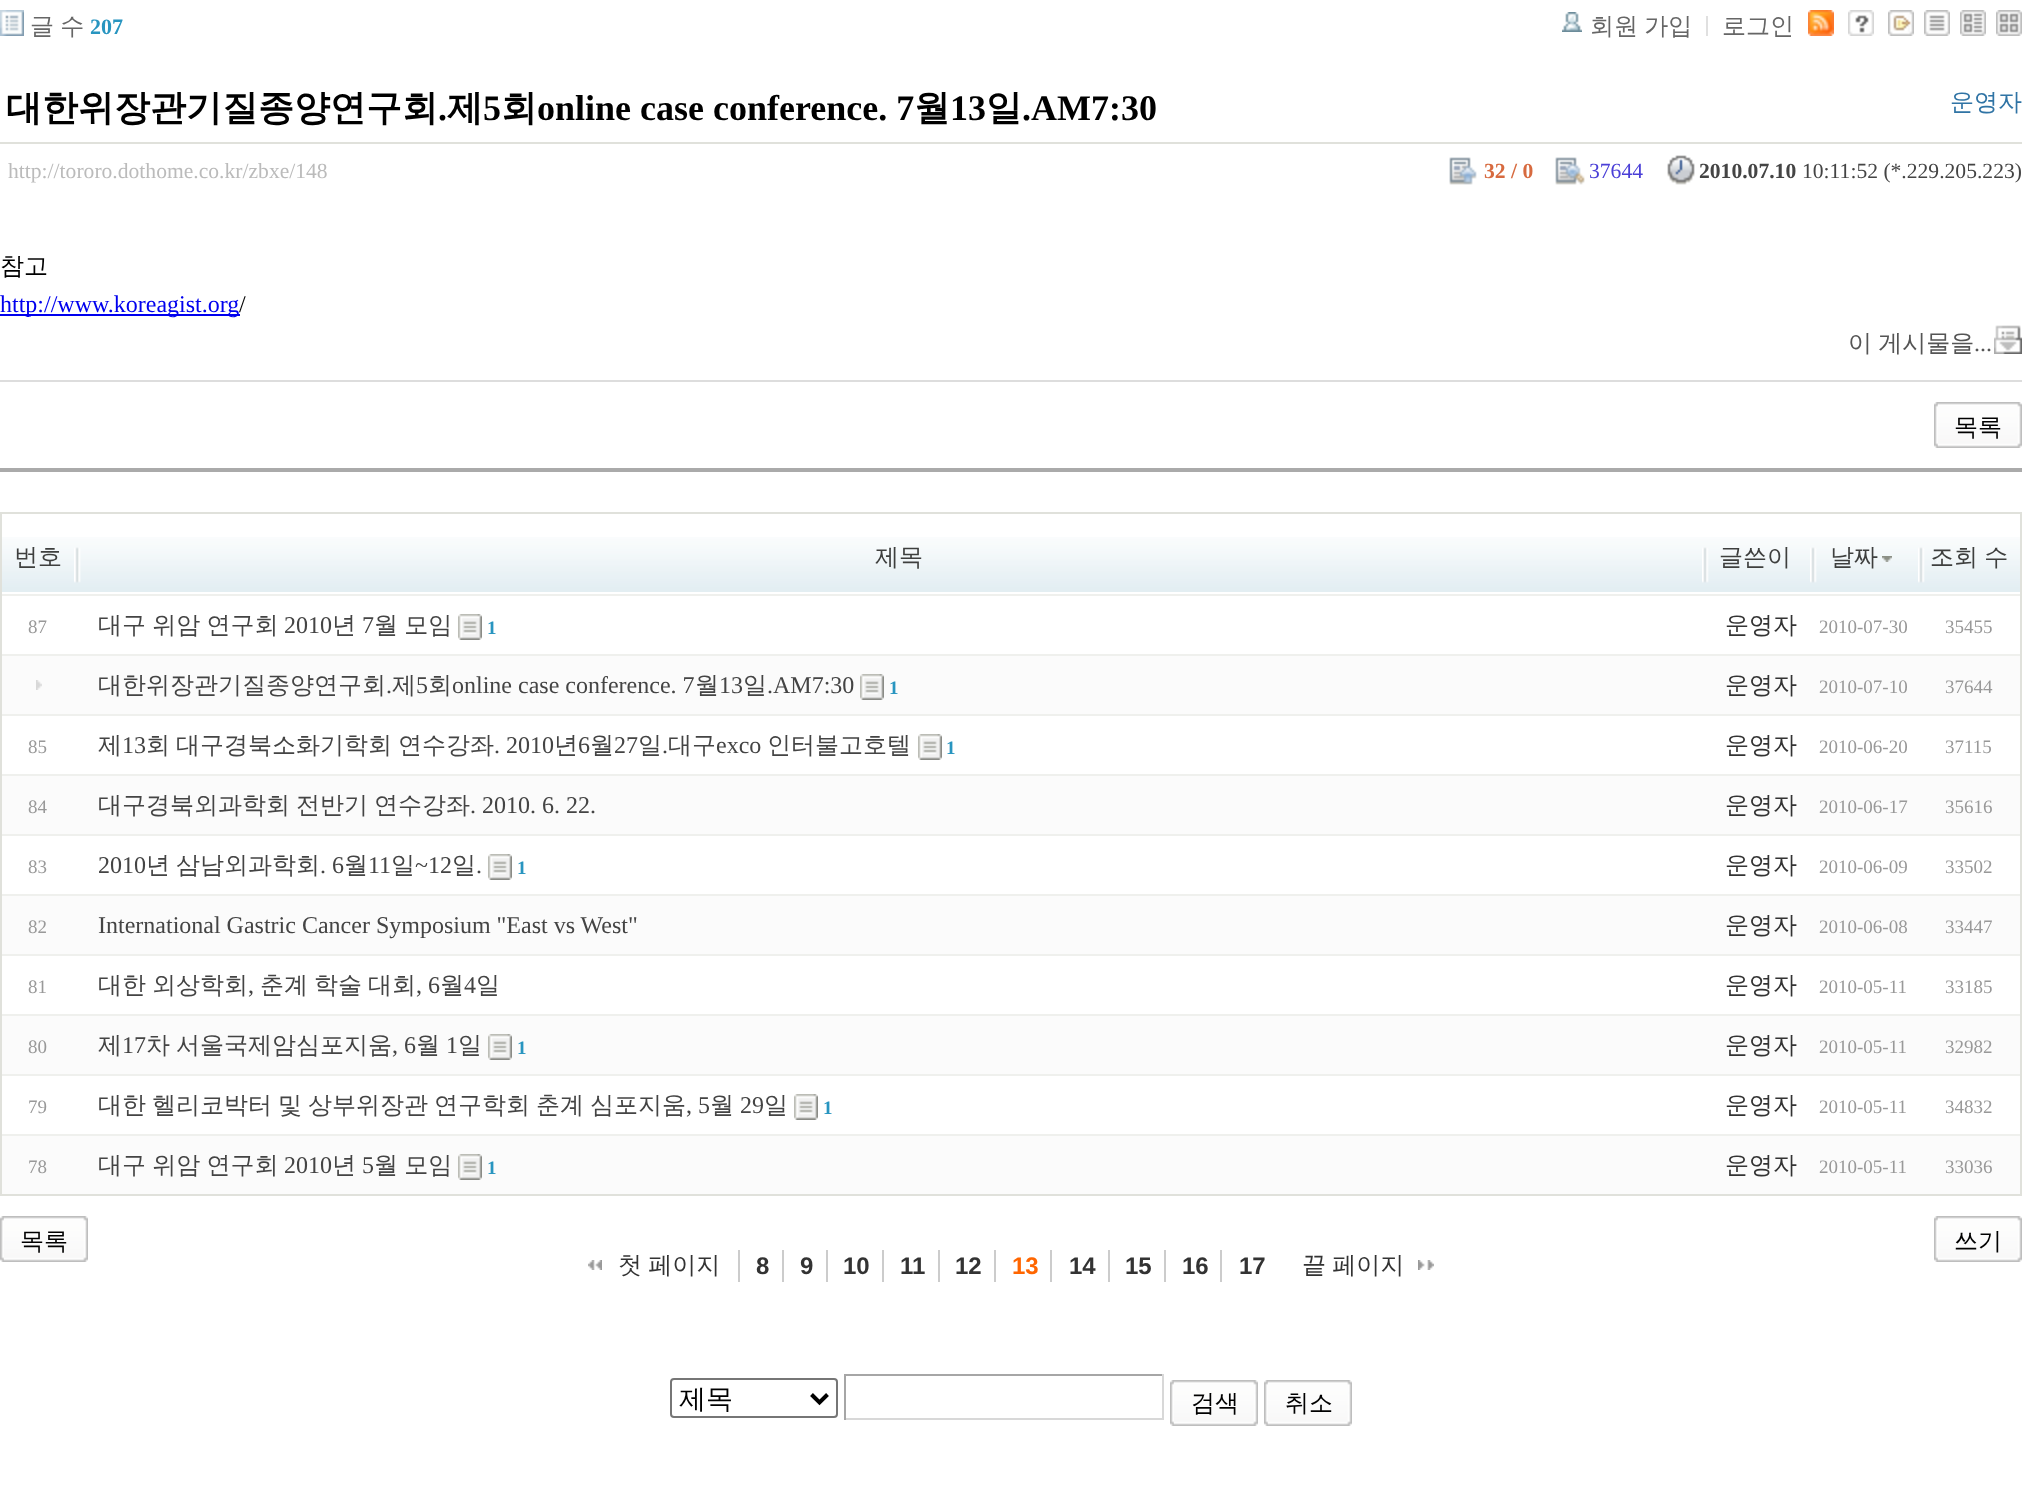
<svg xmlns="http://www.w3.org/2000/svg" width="2022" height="1510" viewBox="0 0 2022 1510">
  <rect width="100%" height="100%" fill="rgb(255,255,255)"/>
  <image x="0" y="10" width="24" height="26" href="pic1.png"/>
  <text x="30" y="34" word-spacing="-1" font-family="WenQuanYi Zen Hei" font-size="24" font-weight="500" fill="rgb(102,102,102)">글 수</text>
  <text x="90" y="34" font-family="Liberation Serif" font-size="22" font-weight="bold" fill="rgb(40,149,192)">207</text>
  <image x="1562" y="12" width="20" height="20" href="pic2.png"/>
  <g font-family="WenQuanYi Zen Hei" font-size="24" font-weight="500" fill="rgb(102,102,102)">
    <text x="1590" y="34" word-spacing="-1">회원 가입</text>
    <text x="1722" y="34">로그인</text>
  </g>
  <rect x="1706" y="16" width="2" height="20" fill="rgb(224,224,224)"/>
  <image x="1808" y="10" width="26" height="26" href="pic3.png"/>
  <image x="1848" y="10" width="26" height="26" href="pic4.png"/>
  <image x="1888" y="10" width="26" height="26" href="pic5.png"/>
  <image x="1924" y="10" width="26" height="26" href="pic6.png"/>
  <image x="1960" y="10" width="26" height="26" href="pic7.png"/>
  <image x="1996" y="10" width="26" height="26" href="pic8.png"/>
  <rect x="0" y="468" width="2022" height="4" fill="rgb(170,170,170)"/>
  <rect x="0" y="142" width="2022" height="2" fill="rgb(224,225,219)"/>
  <text x="6" y="120" font-family="WenQuanYi Zen Hei" font-size="36" font-weight="bold" fill="rgb(0,0,0)">대한위장관기질종양연구회</text>
  <text x="438" y="120" font-family="Liberation Serif" font-size="36" font-weight="bold" fill="rgb(0,0,0)">.</text>
  <text x="447" y="120" font-family="WenQuanYi Zen Hei" font-size="36" font-weight="bold" fill="rgb(0,0,0)">제</text>
  <text x="483" y="120" font-family="Liberation Serif" font-size="36" font-weight="bold" fill="rgb(0,0,0)">5</text>
  <text x="501" y="120" font-family="WenQuanYi Zen Hei" font-size="36" font-weight="bold" fill="rgb(0,0,0)">회</text>
  <text x="537" y="120" font-family="Liberation Serif" font-size="36" font-weight="bold" fill="rgb(0,0,0)">online case conference. 7</text>
  <text x="914" y="120" font-family="WenQuanYi Zen Hei" font-size="36" font-weight="bold" fill="rgb(0,0,0)">월</text>
  <text x="950" y="120" font-family="Liberation Serif" font-size="36" font-weight="bold" fill="rgb(0,0,0)">13</text>
  <text x="986" y="120" font-family="WenQuanYi Zen Hei" font-size="36" font-weight="bold" fill="rgb(0,0,0)">일</text>
  <text x="1022" y="120" font-family="Liberation Serif" font-size="36" font-weight="bold" fill="rgb(0,0,0)">.AM7:30</text>
  <text x="1950" y="110" font-family="WenQuanYi Zen Hei" font-size="24" font-weight="500" fill="rgb(48,116,165)">운영자</text>
  <text x="8" y="178" font-family="Liberation Serif" font-size="21.6" fill="rgb(187,187,187)">http://tororo.dothome.co.kr/zbxe/148</text>
  <image x="1449" y="157" width="28" height="28" href="pic9.png"/>
  <text x="1484" y="178" font-family="Liberation Serif" font-size="21.6" font-weight="bold" fill="rgb(215,106,63)">32 / 0</text>
  <image x="1555" y="157" width="30" height="28" href="pic10.png"/>
  <text x="1589" y="178" font-family="Liberation Serif" font-size="21.6" fill="rgb(74,63,215)">37644</text>
  <image x="1667" y="155" width="28" height="30" href="pic11.png"/>
  <text x="1699" y="178" font-family="Liberation Serif" font-size="21.6" font-weight="bold" fill="rgb(68,68,68)">2010.07.10</text>
  <text x="1802" y="178" font-family="Liberation Serif" font-size="21.6" fill="rgb(68,68,68)">10:11:52 (*.229.205.223)</text>
  <text x="0" y="274" font-family="WenQuanYi Zen Hei" font-size="24" font-weight="500" fill="rgb(0,0,0)">참고</text>
  <rect x="0" y="314" width="240" height="2" fill="rgb(0,0,238)"/>
  <text x="0" y="312" font-family="Liberation Serif" font-size="24" fill="rgb(0,0,238)">http://www.koreagist.org</text>
  <text x="239" y="312" font-family="Liberation Serif" font-size="24" fill="rgb(0,0,0)">/</text>
  <image x="1994" y="325" width="28" height="29" href="pic12.png"/>
  <text x="1848" y="351" word-spacing="-1" font-family="WenQuanYi Zen Hei" font-size="24" font-weight="500" fill="rgb(85,85,85)">이 게시물을</text>
  <text x="1974" y="351" font-family="Liberation Serif" font-size="24" fill="rgb(85,85,85)">...</text>
  <rect x="0" y="380" width="2022" height="2" fill="rgb(221,221,221)"/>
  <image x="1934" y="402" width="4" height="46" href="pic13.png"/>
  <image x="1938" y="402" width="84" height="46" href="pic14.png"/>
  <text x="1954" y="435" font-family="WenQuanYi Zen Hei" font-size="24" font-weight="500" fill="rgb(0,0,0)">목록</text>
  <rect x="2020" y="512" width="2" height="684" fill="rgb(224,225,219)"/>
  <rect x="0" y="1194" width="2022" height="2" fill="rgb(224,225,219)"/>
  <rect x="0" y="512" width="2" height="684" fill="rgb(224,225,219)"/>
  <image x="2" y="537" width="72" height="55" href="pic15.png"/>
  <rect x="2" y="512" width="2018" height="2" fill="rgb(224,225,219)"/>
  <text x="14" y="565" font-family="WenQuanYi Zen Hei" font-size="24" font-weight="500" fill="rgb(62,63,62)">번호</text>
  <image x="74" y="537" width="1628" height="55" href="pic16.png"/>
  <text x="875" y="565" font-family="WenQuanYi Zen Hei" font-size="24" font-weight="500" fill="rgb(62,63,62)">제목</text>
  <image x="1702" y="537" width="108" height="55" href="pic17.png"/>
  <text x="1719" y="565" font-family="WenQuanYi Zen Hei" font-size="24" font-weight="500" fill="rgb(62,63,62)">글쓴이</text>
  <image x="1810" y="537" width="108" height="55" href="pic17.png"/>
  <text x="1830" y="565" font-family="WenQuanYi Zen Hei" font-size="24" font-weight="500" fill="rgb(62,63,62)">날짜</text>
  <image x="1882" y="556" width="10" height="6" href="pic18.png"/>
  <image x="1918" y="537" width="102" height="55" href="pic19.png"/>
  <text x="1930" y="565" word-spacing="-1" font-family="WenQuanYi Zen Hei" font-size="24" font-weight="500" fill="rgb(62,63,62)">조회 수</text>
  <rect x="2" y="594" width="2018" height="2" fill="rgb(239,240,237)"/>
  <text x="28" y="633" font-family="Liberation Serif" font-size="19" fill="rgb(153,153,153)">87</text>
  <text x="98" y="633" word-spacing="-1" font-family="WenQuanYi Zen Hei" font-size="24" font-weight="500" fill="rgb(68,68,68)">대구 위암 연구회</text>
  <text x="284" y="633" font-family="Liberation Serif" font-size="24" fill="rgb(68,68,68)">2010</text>
  <text x="332" y="633" font-family="WenQuanYi Zen Hei" font-size="24" font-weight="500" fill="rgb(68,68,68)">년</text>
  <text x="362" y="633" font-family="Liberation Serif" font-size="24" fill="rgb(68,68,68)">7</text>
  <text x="374" y="633" word-spacing="-1" font-family="WenQuanYi Zen Hei" font-size="24" font-weight="500" fill="rgb(68,68,68)">월 모임</text>
  <image x="458" y="614" width="24" height="26" href="pic20.png"/>
  <text x="487" y="634" font-family="Liberation Serif" font-size="19" font-weight="bold" fill="rgb(40,149,192)">1</text>
  <text x="1725" y="633" font-family="WenQuanYi Zen Hei" font-size="24" font-weight="500" fill="rgb(51,51,51)">운영자</text>
  <g font-family="Liberation Serif" font-size="19" fill="rgb(153,153,153)">
    <text x="1819" y="633">2010-07-30</text>
    <text x="1945" y="633">35455</text>
  </g>
  <rect x="2" y="656" width="2018" height="58" fill="rgb(251,251,251)"/>
  <rect x="2" y="654" width="2018" height="2" fill="rgb(239,240,237)"/>
  <image x="36" y="680" width="6" height="10" href="pic21.png"/>
  <text x="98" y="693" font-family="WenQuanYi Zen Hei" font-size="24" font-weight="500" fill="rgb(68,68,68)">대한위장관기질종양연구회</text>
  <text x="386" y="693" font-family="Liberation Serif" font-size="24" fill="rgb(68,68,68)">.</text>
  <text x="392" y="693" font-family="WenQuanYi Zen Hei" font-size="24" font-weight="500" fill="rgb(68,68,68)">제</text>
  <text x="416" y="693" font-family="Liberation Serif" font-size="24" fill="rgb(68,68,68)">5</text>
  <text x="428" y="693" font-family="WenQuanYi Zen Hei" font-size="24" font-weight="500" fill="rgb(68,68,68)">회</text>
  <text x="452" y="693" font-family="Liberation Serif" font-size="24" fill="rgb(68,68,68)">online case conference. 7</text>
  <text x="695" y="693" font-family="WenQuanYi Zen Hei" font-size="24" font-weight="500" fill="rgb(68,68,68)">월</text>
  <text x="719" y="693" font-family="Liberation Serif" font-size="24" fill="rgb(68,68,68)">13</text>
  <text x="743" y="693" font-family="WenQuanYi Zen Hei" font-size="24" font-weight="500" fill="rgb(68,68,68)">일</text>
  <text x="767" y="693" font-family="Liberation Serif" font-size="24" fill="rgb(68,68,68)">.AM7:30</text>
  <image x="860" y="674" width="24" height="26" href="pic22.png"/>
  <text x="889" y="694" font-family="Liberation Serif" font-size="19" font-weight="bold" fill="rgb(40,149,192)">1</text>
  <text x="1725" y="693" font-family="WenQuanYi Zen Hei" font-size="24" font-weight="500" fill="rgb(51,51,51)">운영자</text>
  <g font-family="Liberation Serif" font-size="19" fill="rgb(153,153,153)">
    <text x="1819" y="693">2010-07-10</text>
    <text x="1945" y="693">37644</text>
  </g>
  <rect x="2" y="714" width="2018" height="2" fill="rgb(239,240,237)"/>
  <text x="28" y="753" font-family="Liberation Serif" font-size="19" fill="rgb(153,153,153)">85</text>
  <text x="98" y="753" font-family="WenQuanYi Zen Hei" font-size="24" font-weight="500" fill="rgb(68,68,68)">제</text>
  <text x="122" y="753" font-family="Liberation Serif" font-size="24" fill="rgb(68,68,68)">13</text>
  <g font-family="WenQuanYi Zen Hei" font-size="24" font-weight="500" fill="rgb(68,68,68)">
    <text x="146" y="753">회</text>
    <text x="176" y="753">대구경북소화기학회</text>
    <text x="398" y="753">연수강좌</text>
  </g>
  <text x="494" y="753" font-family="Liberation Serif" font-size="24" fill="rgb(68,68,68)">. 2010</text>
  <text x="554" y="753" font-family="WenQuanYi Zen Hei" font-size="24" font-weight="500" fill="rgb(68,68,68)">년</text>
  <text x="578" y="753" font-family="Liberation Serif" font-size="24" fill="rgb(68,68,68)">6</text>
  <text x="590" y="753" font-family="WenQuanYi Zen Hei" font-size="24" font-weight="500" fill="rgb(68,68,68)">월</text>
  <text x="614" y="753" font-family="Liberation Serif" font-size="24" fill="rgb(68,68,68)">27</text>
  <text x="638" y="753" font-family="WenQuanYi Zen Hei" font-size="24" font-weight="500" fill="rgb(68,68,68)">일</text>
  <text x="662" y="753" font-family="Liberation Serif" font-size="24" fill="rgb(68,68,68)">.</text>
  <text x="668" y="753" font-family="WenQuanYi Zen Hei" font-size="24" font-weight="500" fill="rgb(68,68,68)">대구</text>
  <text x="716" y="753" font-family="Liberation Serif" font-size="24" fill="rgb(68,68,68)">exco</text>
  <text x="767" y="753" font-family="WenQuanYi Zen Hei" font-size="24" font-weight="500" fill="rgb(68,68,68)">인터불고호텔</text>
  <image x="918" y="734" width="24" height="26" href="pic20.png"/>
  <text x="946" y="754" font-family="Liberation Serif" font-size="19" font-weight="bold" fill="rgb(40,149,192)">1</text>
  <text x="1725" y="753" font-family="WenQuanYi Zen Hei" font-size="24" font-weight="500" fill="rgb(51,51,51)">운영자</text>
  <g font-family="Liberation Serif" font-size="19" fill="rgb(153,153,153)">
    <text x="1819" y="753">2010-06-20</text>
    <text x="1945" y="753">37115</text>
  </g>
  <rect x="2" y="776" width="2018" height="58" fill="rgb(251,251,251)"/>
  <rect x="2" y="774" width="2018" height="2" fill="rgb(239,240,237)"/>
  <text x="28" y="813" font-family="Liberation Serif" font-size="19" fill="rgb(153,153,153)">84</text>
  <g font-family="WenQuanYi Zen Hei" font-size="24" font-weight="500" fill="rgb(68,68,68)">
    <text x="98" y="813">대구경북외과학회</text>
    <text x="296" y="813">전반기</text>
    <text x="374" y="813">연수강좌</text>
  </g>
  <text x="470" y="813" font-family="Liberation Serif" font-size="24" fill="rgb(68,68,68)">. 2010. 6. 22.</text>
  <text x="1725" y="813" font-family="WenQuanYi Zen Hei" font-size="24" font-weight="500" fill="rgb(51,51,51)">운영자</text>
  <g font-family="Liberation Serif" font-size="19" fill="rgb(153,153,153)">
    <text x="1819" y="813">2010-06-17</text>
    <text x="1945" y="813">35616</text>
  </g>
  <rect x="2" y="834" width="2018" height="2" fill="rgb(239,240,237)"/>
  <text x="28" y="873" font-family="Liberation Serif" font-size="19" fill="rgb(153,153,153)">83</text>
  <text x="98" y="873" font-family="Liberation Serif" font-size="24" fill="rgb(68,68,68)">2010</text>
  <g font-family="WenQuanYi Zen Hei" font-size="24" font-weight="500" fill="rgb(68,68,68)">
    <text x="146" y="873">년</text>
    <text x="176" y="873">삼남외과학회</text>
  </g>
  <text x="320" y="873" font-family="Liberation Serif" font-size="24" fill="rgb(68,68,68)">. 6</text>
  <text x="344" y="873" font-family="WenQuanYi Zen Hei" font-size="24" font-weight="500" fill="rgb(68,68,68)">월</text>
  <text x="368" y="873" font-family="Liberation Serif" font-size="24" fill="rgb(68,68,68)">11</text>
  <text x="391" y="873" font-family="WenQuanYi Zen Hei" font-size="24" font-weight="500" fill="rgb(68,68,68)">일</text>
  <text x="415" y="873" font-family="Liberation Serif" font-size="24" fill="rgb(68,68,68)">~12</text>
  <text x="452" y="873" font-family="WenQuanYi Zen Hei" font-size="24" font-weight="500" fill="rgb(68,68,68)">일</text>
  <text x="476" y="873" font-family="Liberation Serif" font-size="24" fill="rgb(68,68,68)">.</text>
  <image x="488" y="854" width="24" height="26" href="pic20.png"/>
  <text x="517" y="874" font-family="Liberation Serif" font-size="19" font-weight="bold" fill="rgb(40,149,192)">1</text>
  <text x="1725" y="873" font-family="WenQuanYi Zen Hei" font-size="24" font-weight="500" fill="rgb(51,51,51)">운영자</text>
  <g font-family="Liberation Serif" font-size="19" fill="rgb(153,153,153)">
    <text x="1819" y="873">2010-06-09</text>
    <text x="1945" y="873">33502</text>
  </g>
  <rect x="2" y="896" width="2018" height="58" fill="rgb(251,251,251)"/>
  <rect x="2" y="894" width="2018" height="2" fill="rgb(239,240,237)"/>
  <text x="28" y="933" font-family="Liberation Serif" font-size="19" fill="rgb(153,153,153)">82</text>
  <text x="98" y="933" font-family="Liberation Serif" font-size="24" fill="rgb(68,68,68)">International Gastric Cancer Symposium "East vs West"</text>
  <text x="1725" y="933" font-family="WenQuanYi Zen Hei" font-size="24" font-weight="500" fill="rgb(51,51,51)">운영자</text>
  <g font-family="Liberation Serif" font-size="19" fill="rgb(153,153,153)">
    <text x="1819" y="933">2010-06-08</text>
    <text x="1945" y="933">33447</text>
  </g>
  <rect x="2" y="954" width="2018" height="2" fill="rgb(239,240,237)"/>
  <text x="28" y="993" font-family="Liberation Serif" font-size="19" fill="rgb(153,153,153)">81</text>
  <g font-family="WenQuanYi Zen Hei" font-size="24" font-weight="500" fill="rgb(68,68,68)">
    <text x="98" y="993">대한</text>
    <text x="152" y="993">외상학회</text>
  </g>
  <text x="248" y="993" font-family="Liberation Serif" font-size="24" fill="rgb(68,68,68)">,</text>
  <g font-family="WenQuanYi Zen Hei" font-size="24" font-weight="500" fill="rgb(68,68,68)">
    <text x="260" y="993">춘계</text>
    <text x="314" y="993">학술</text>
    <text x="368" y="993">대회</text>
  </g>
  <text x="416" y="993" font-family="Liberation Serif" font-size="24" fill="rgb(68,68,68)">, 6</text>
  <text x="440" y="993" font-family="WenQuanYi Zen Hei" font-size="24" font-weight="500" fill="rgb(68,68,68)">월</text>
  <text x="464" y="993" font-family="Liberation Serif" font-size="24" fill="rgb(68,68,68)">4</text>
  <text x="476" y="993" font-family="WenQuanYi Zen Hei" font-size="24" font-weight="500" fill="rgb(68,68,68)">일</text>
  <text x="1725" y="993" font-family="WenQuanYi Zen Hei" font-size="24" font-weight="500" fill="rgb(51,51,51)">운영자</text>
  <g font-family="Liberation Serif" font-size="19" fill="rgb(153,153,153)">
    <text x="1819" y="993">2010-05-11</text>
    <text x="1945" y="993">33185</text>
  </g>
  <rect x="2" y="1016" width="2018" height="58" fill="rgb(251,251,251)"/>
  <rect x="2" y="1014" width="2018" height="2" fill="rgb(239,240,237)"/>
  <text x="28" y="1053" font-family="Liberation Serif" font-size="19" fill="rgb(153,153,153)">80</text>
  <text x="98" y="1053" font-family="WenQuanYi Zen Hei" font-size="24" font-weight="500" fill="rgb(68,68,68)">제</text>
  <text x="122" y="1053" font-family="Liberation Serif" font-size="24" fill="rgb(68,68,68)">17</text>
  <g font-family="WenQuanYi Zen Hei" font-size="24" font-weight="500" fill="rgb(68,68,68)">
    <text x="146" y="1053">차</text>
    <text x="176" y="1053">서울국제암심포지움</text>
  </g>
  <text x="392" y="1053" font-family="Liberation Serif" font-size="24" fill="rgb(68,68,68)">, 6</text>
  <text x="416" y="1053" font-family="WenQuanYi Zen Hei" font-size="24" font-weight="500" fill="rgb(68,68,68)">월</text>
  <text x="446" y="1053" font-family="Liberation Serif" font-size="24" fill="rgb(68,68,68)">1</text>
  <text x="458" y="1053" font-family="WenQuanYi Zen Hei" font-size="24" font-weight="500" fill="rgb(68,68,68)">일</text>
  <image x="488" y="1034" width="24" height="26" href="pic22.png"/>
  <text x="517" y="1054" font-family="Liberation Serif" font-size="19" font-weight="bold" fill="rgb(40,149,192)">1</text>
  <text x="1725" y="1053" font-family="WenQuanYi Zen Hei" font-size="24" font-weight="500" fill="rgb(51,51,51)">운영자</text>
  <g font-family="Liberation Serif" font-size="19" fill="rgb(153,153,153)">
    <text x="1819" y="1053">2010-05-11</text>
    <text x="1945" y="1053">32982</text>
  </g>
  <rect x="2" y="1074" width="2018" height="2" fill="rgb(239,240,237)"/>
  <text x="28" y="1113" font-family="Liberation Serif" font-size="19" fill="rgb(153,153,153)">79</text>
  <g font-family="WenQuanYi Zen Hei" font-size="24" font-weight="500" fill="rgb(68,68,68)">
    <text x="98" y="1113">대한</text>
    <text x="152" y="1113">헬리코박터</text>
    <text x="278" y="1113">및</text>
    <text x="308" y="1113">상부위장관</text>
    <text x="434" y="1113">연구학회</text>
    <text x="536" y="1113">춘계</text>
    <text x="590" y="1113">심포지움</text>
  </g>
  <text x="686" y="1113" font-family="Liberation Serif" font-size="24" fill="rgb(68,68,68)">, 5</text>
  <text x="710" y="1113" font-family="WenQuanYi Zen Hei" font-size="24" font-weight="500" fill="rgb(68,68,68)">월</text>
  <text x="740" y="1113" font-family="Liberation Serif" font-size="24" fill="rgb(68,68,68)">29</text>
  <text x="764" y="1113" font-family="WenQuanYi Zen Hei" font-size="24" font-weight="500" fill="rgb(68,68,68)">일</text>
  <image x="794" y="1094" width="24" height="26" href="pic20.png"/>
  <text x="823" y="1114" font-family="Liberation Serif" font-size="19" font-weight="bold" fill="rgb(40,149,192)">1</text>
  <text x="1725" y="1113" font-family="WenQuanYi Zen Hei" font-size="24" font-weight="500" fill="rgb(51,51,51)">운영자</text>
  <g font-family="Liberation Serif" font-size="19" fill="rgb(153,153,153)">
    <text x="1819" y="1113">2010-05-11</text>
    <text x="1945" y="1113">34832</text>
  </g>
  <rect x="2" y="1136" width="2018" height="58" fill="rgb(251,251,251)"/>
  <rect x="2" y="1134" width="2018" height="2" fill="rgb(239,240,237)"/>
  <text x="28" y="1173" font-family="Liberation Serif" font-size="19" fill="rgb(153,153,153)">78</text>
  <text x="98" y="1173" word-spacing="-1" font-family="WenQuanYi Zen Hei" font-size="24" font-weight="500" fill="rgb(68,68,68)">대구 위암 연구회</text>
  <text x="284" y="1173" font-family="Liberation Serif" font-size="24" fill="rgb(68,68,68)">2010</text>
  <text x="332" y="1173" font-family="WenQuanYi Zen Hei" font-size="24" font-weight="500" fill="rgb(68,68,68)">년</text>
  <text x="362" y="1173" font-family="Liberation Serif" font-size="24" fill="rgb(68,68,68)">5</text>
  <text x="374" y="1173" word-spacing="-1" font-family="WenQuanYi Zen Hei" font-size="24" font-weight="500" fill="rgb(68,68,68)">월 모임</text>
  <image x="458" y="1154" width="24" height="26" href="pic22.png"/>
  <text x="487" y="1174" font-family="Liberation Serif" font-size="19" font-weight="bold" fill="rgb(40,149,192)">1</text>
  <text x="1725" y="1173" font-family="WenQuanYi Zen Hei" font-size="24" font-weight="500" fill="rgb(51,51,51)">운영자</text>
  <g font-family="Liberation Serif" font-size="19" fill="rgb(153,153,153)">
    <text x="1819" y="1173">2010-05-11</text>
    <text x="1945" y="1173">33036</text>
  </g>
  <image x="0" y="1216" width="4" height="46" href="pic13.png"/>
  <image x="4" y="1216" width="84" height="46" href="pic14.png"/>
  <text x="20" y="1249" font-family="WenQuanYi Zen Hei" font-size="24" font-weight="500" fill="rgb(0,0,0)">목록</text>
  <image x="1934" y="1216" width="4" height="46" href="pic13.png"/>
  <image x="1938" y="1216" width="84" height="46" href="pic14.png"/>
  <text x="1954" y="1249" font-family="WenQuanYi Zen Hei" font-size="24" font-weight="500" fill="rgb(0,0,0)">쓰기</text>
  <image x="588" y="1260" width="14" height="10" href="pic23.png"/>
  <text x="618" y="1273" word-spacing="-1" font-family="WenQuanYi Zen Hei" font-size="24" font-weight="500" fill="rgb(51,51,51)">첫 페이지</text>
  <rect x="738" y="1250" width="2" height="32" fill="rgb(204,204,204)"/>
  <text x="756" y="1274" font-family="Liberation Sans" font-size="24" font-weight="bold" fill="rgb(51,51,51)">8</text>
  <rect x="782" y="1250" width="2" height="32" fill="rgb(204,204,204)"/>
  <text x="800" y="1274" font-family="Liberation Sans" font-size="24" font-weight="bold" fill="rgb(51,51,51)">9</text>
  <rect x="826" y="1250" width="2" height="32" fill="rgb(204,204,204)"/>
  <text x="843" y="1274" font-family="Liberation Sans" font-size="24" font-weight="bold" fill="rgb(51,51,51)">10</text>
  <rect x="882" y="1250" width="2" height="32" fill="rgb(204,204,204)"/>
  <text x="900" y="1274" font-family="Liberation Sans" font-size="24" font-weight="bold" fill="rgb(51,51,51)">11</text>
  <rect x="938" y="1250" width="2" height="32" fill="rgb(204,204,204)"/>
  <text x="955" y="1274" font-family="Liberation Sans" font-size="24" font-weight="bold" fill="rgb(51,51,51)">12</text>
  <rect x="994" y="1250" width="2" height="32" fill="rgb(204,204,204)"/>
  <text x="1012" y="1274" font-family="Liberation Sans" font-size="24" font-weight="bold" fill="rgb(255,102,0)">13</text>
  <rect x="1050" y="1250" width="2" height="32" fill="rgb(204,204,204)"/>
  <text x="1069" y="1274" font-family="Liberation Sans" font-size="24" font-weight="bold" fill="rgb(51,51,51)">14</text>
  <rect x="1108" y="1250" width="2" height="32" fill="rgb(204,204,204)"/>
  <text x="1125" y="1274" font-family="Liberation Sans" font-size="24" font-weight="bold" fill="rgb(51,51,51)">15</text>
  <rect x="1164" y="1250" width="2" height="32" fill="rgb(204,204,204)"/>
  <text x="1182" y="1274" font-family="Liberation Sans" font-size="24" font-weight="bold" fill="rgb(51,51,51)">16</text>
  <rect x="1220" y="1250" width="2" height="32" fill="rgb(204,204,204)"/>
  <text x="1239" y="1274" font-family="Liberation Sans" font-size="24" font-weight="bold" fill="rgb(51,51,51)">17</text>
  <image x="1418" y="1260" width="16" height="10" href="pic24.png"/>
  <text x="1302" y="1273" word-spacing="-1" font-family="WenQuanYi Zen Hei" font-size="24" font-weight="500" fill="rgb(51,51,51)">끝 페이지</text>
  <rect x="671" y="1379" width="166" height="38" rx="3" fill="none" stroke="rgb(118,118,118)" stroke-width="2"/>
  <path d="M811.5 1394.5L819.5 1402.5L827.5 1394.5" fill="none" stroke="rgb(0,0,0)" stroke-width="4"/>
  <text x="679" y="1408" font-family="WenQuanYi Zen Hei" font-size="27" font-weight="500" fill="rgb(0,0,0)">제목</text>
  <rect x="844" y="1374" width="320" height="2" fill="rgb(166,166,166)"/>
  <rect x="1162" y="1374" width="2" height="46" fill="rgb(216,216,216)"/>
  <rect x="844" y="1418" width="320" height="2" fill="rgb(216,216,216)"/>
  <rect x="844" y="1374" width="2" height="46" fill="rgb(166,166,166)"/>
  <image x="1170" y="1380" width="4" height="46" href="pic13.png"/>
  <image x="1174" y="1380" width="84" height="46" href="pic14.png"/>
  <text x="1191" y="1411" font-family="WenQuanYi Zen Hei" font-size="24" font-weight="500" fill="rgb(0,0,0)">검색</text>
  <image x="1264" y="1380" width="4" height="46" href="pic13.png"/>
  <image x="1268" y="1380" width="84" height="46" href="pic14.png"/>
  <text x="1285" y="1411" font-family="WenQuanYi Zen Hei" font-size="24" font-weight="500" fill="rgb(0,0,0)">취소</text>
</svg>
